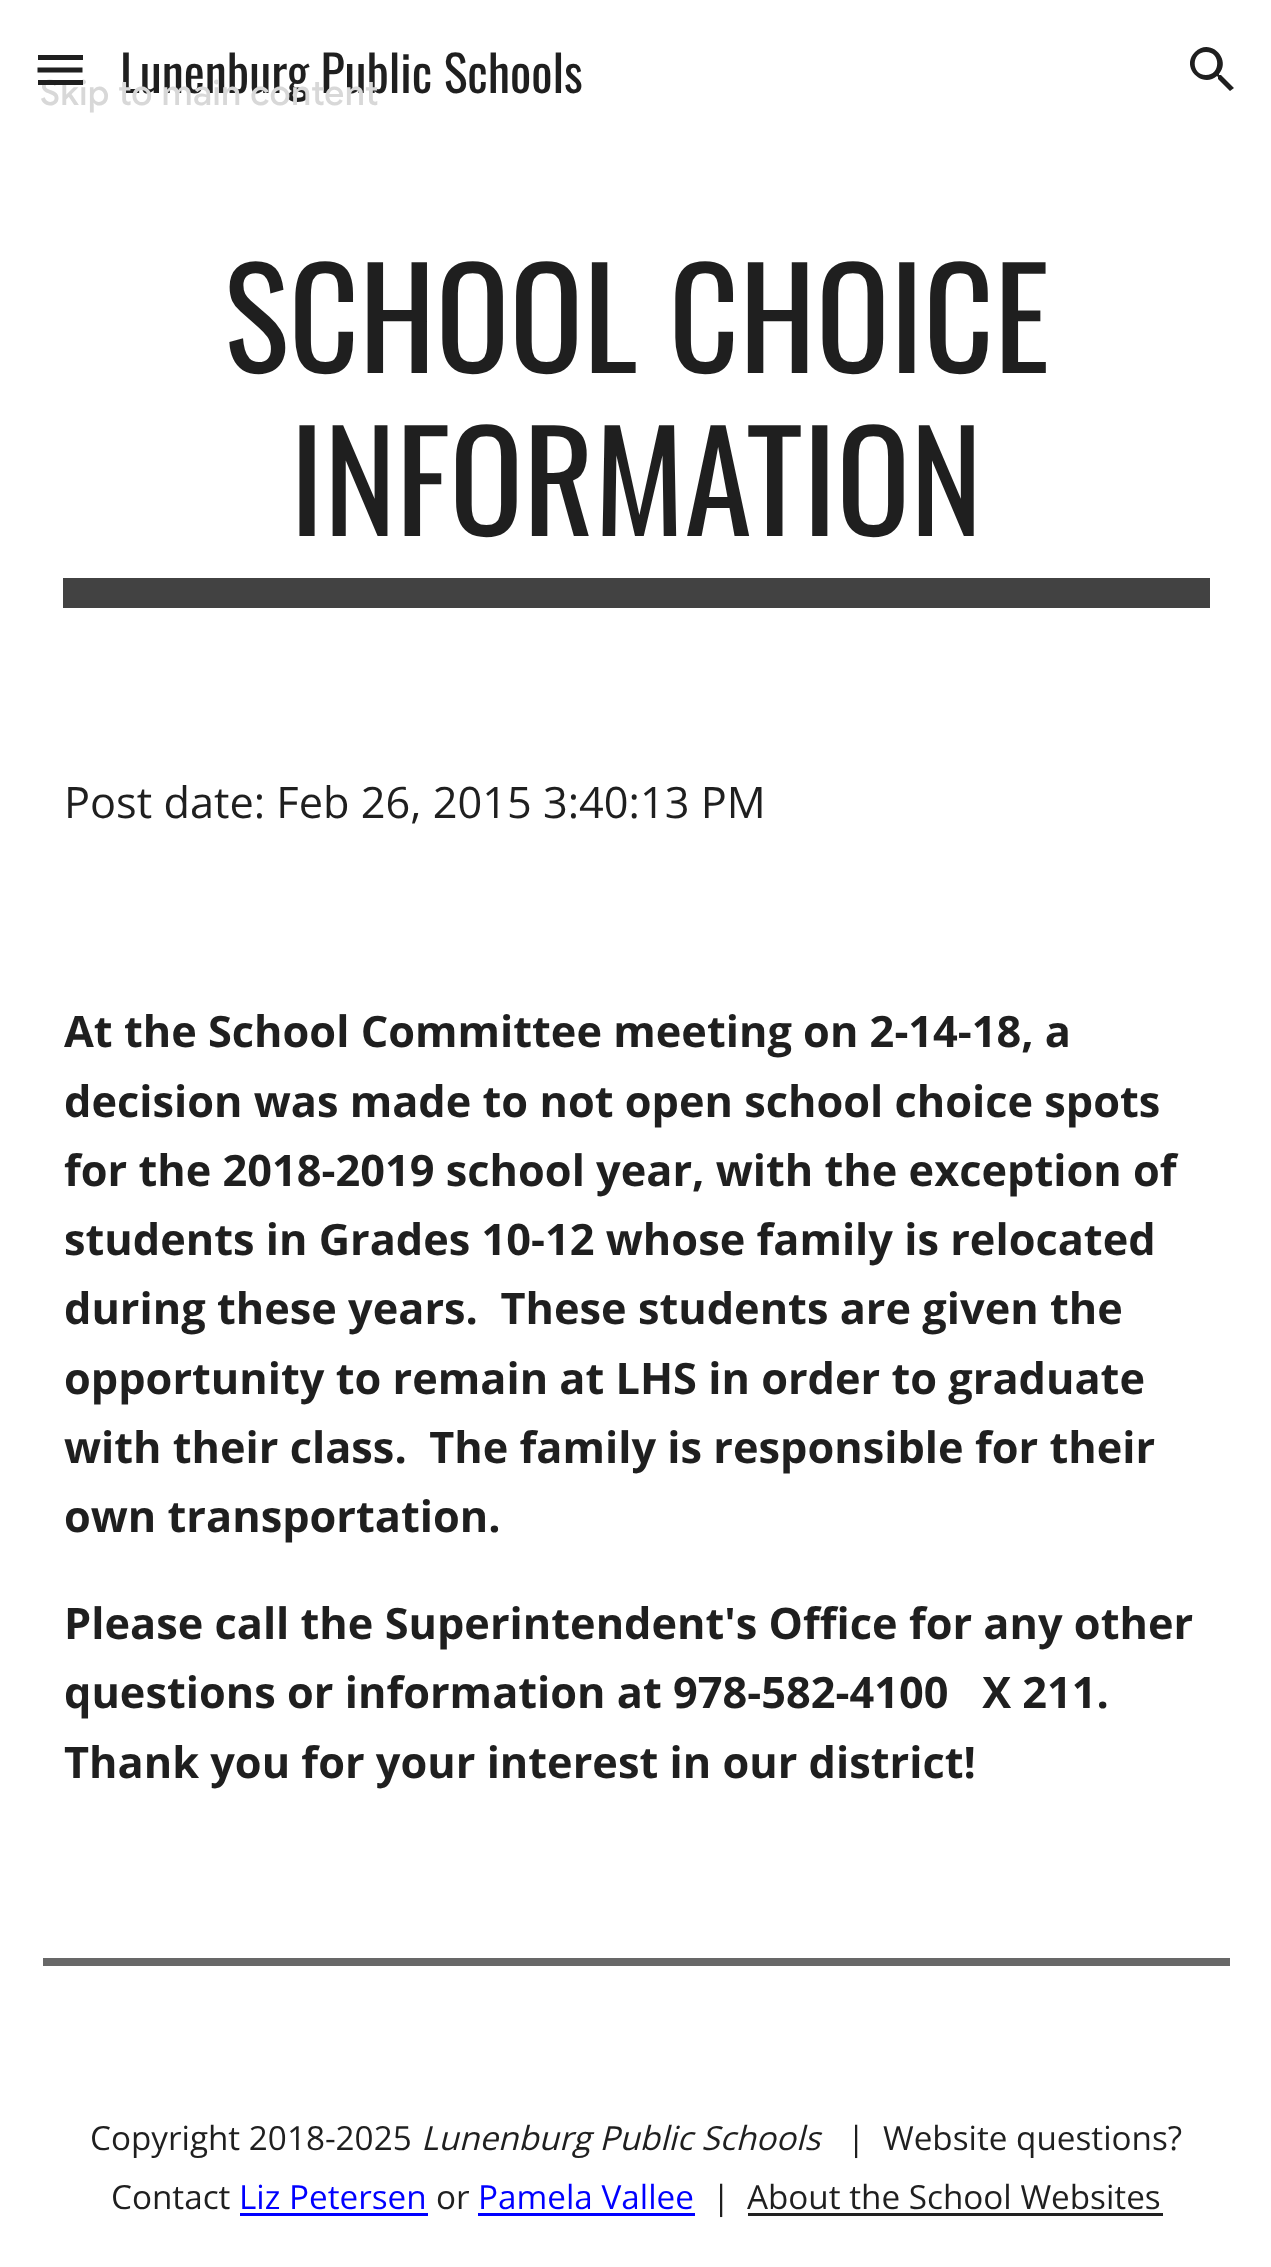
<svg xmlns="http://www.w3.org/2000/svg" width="1271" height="2267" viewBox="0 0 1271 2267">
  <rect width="100%" height="100%" fill="rgb(255,255,255)"/>
  <rect x="38" y="55" width="45" height="5" fill="rgb(31,31,31)"/>
  <path d="M37.5 70H82.5" fill="none" stroke="rgb(31,31,31)" stroke-width="5"/>
  <text x="120" y="93" font-family="Oswald" font-size="50" fill="rgb(31,31,31)">Lunenburg Public Schools</text>
  <text x="40" y="105" font-family="Google Sans" font-size="35" font-weight="500" letter-spacing="0.4" fill="rgb(216,216,216)">Skip to main content</text>
  <rect x="38" y="80" width="45" height="5" fill="rgb(31,31,31)"/>
  <path d="M1221 75H1219V74C1232 59 1210 37 1195 52C1180 67 1202 89 1217 76L1218 77V79L1230 91L1234 88ZM1206 75C1191 75 1191 52 1206 52C1221 52 1221 75 1206 75Z" fill="rgb(31,31,31)"/>
  <g font-family="Oswald" font-size="136.75" fill="rgb(31,31,31)">
    <text x="224" y="373">SCHOOL CHOICE</text>
    <text x="290" y="536">INFORMATION</text>
  </g>
  <rect x="63" y="578" width="1147" height="30" fill="rgb(66,66,66)"/>
  <text x="64" y="818" font-family="Open Sans" font-size="43.3" fill="rgb(31,31,31)">Post date: Feb 26, 2015 3:40:13 PM</text>
  <g font-family="Open Sans" font-size="43.3" font-weight="bold" fill="rgb(31,31,31)">
    <text xml:space="preserve"><tspan x="64" y="1047">At the School Committee meeting on 2-14-18, a</tspan><tspan x="64" y="1117">decision was made to not open school choice spots</tspan><tspan x="64" y="1186">for the 2018-2019 school year, with the exception of</tspan><tspan x="64" y="1255">students in Grades 10-12 whose family is relocated</tspan><tspan x="64" y="1324">during these years.  These students are given the</tspan><tspan x="64" y="1394">opportunity to remain at LHS in order to graduate</tspan><tspan x="64" y="1463">with their class.  The family is responsible for their</tspan><tspan x="64" y="1532">own transportation.</tspan></text>
    <text xml:space="preserve"><tspan x="64" y="1639">Please call the Superintendent's Office for any other</tspan><tspan x="64" y="1708">questions or information at 978-582-4100   X 211.</tspan><tspan x="64" y="1778">Thank you for your interest in our district!</tspan></text>
  </g>
  <rect x="43" y="1958" width="1187" height="8" fill="rgb(104,104,104)"/>
  <text x="90" y="2150" font-family="Open Sans" font-size="33.25" fill="rgb(31,31,31)">Copyright 2018-2025</text>
  <text x="421" y="2150" font-family="Open Sans" font-size="33.25" font-style="italic" fill="rgb(31,31,31)">Lunenburg Public Schools</text>
  <g font-family="Open Sans" font-size="33.25" fill="rgb(31,31,31)">
    <text x="847" y="2150">|</text>
    <text x="883" y="2150">Website questions?</text>
    <text x="111" y="2209">Contact</text>
  </g>
  <text x="239" y="2209" font-family="Open Sans" font-size="33.25" fill="rgb(0,0,255)">Liz Petersen</text>
  <rect x="240" y="2213" width="188" height="3" fill="rgb(0,0,255)"/>
  <text x="436" y="2209" font-family="Open Sans" font-size="33.25" fill="rgb(31,31,31)">or</text>
  <text x="478" y="2209" font-family="Open Sans" font-size="33.25" fill="rgb(0,0,255)">Pamela Vallee</text>
  <rect x="478" y="2213" width="217" height="3" fill="rgb(0,0,255)"/>
  <g font-family="Open Sans" font-size="33.25" fill="rgb(31,31,31)">
    <text x="712" y="2209">|</text>
    <text x="747" y="2209">About the School Websites</text>
  </g>
  <rect x="748" y="2213" width="415" height="3" fill="rgb(33,33,33)"/>
</svg>
